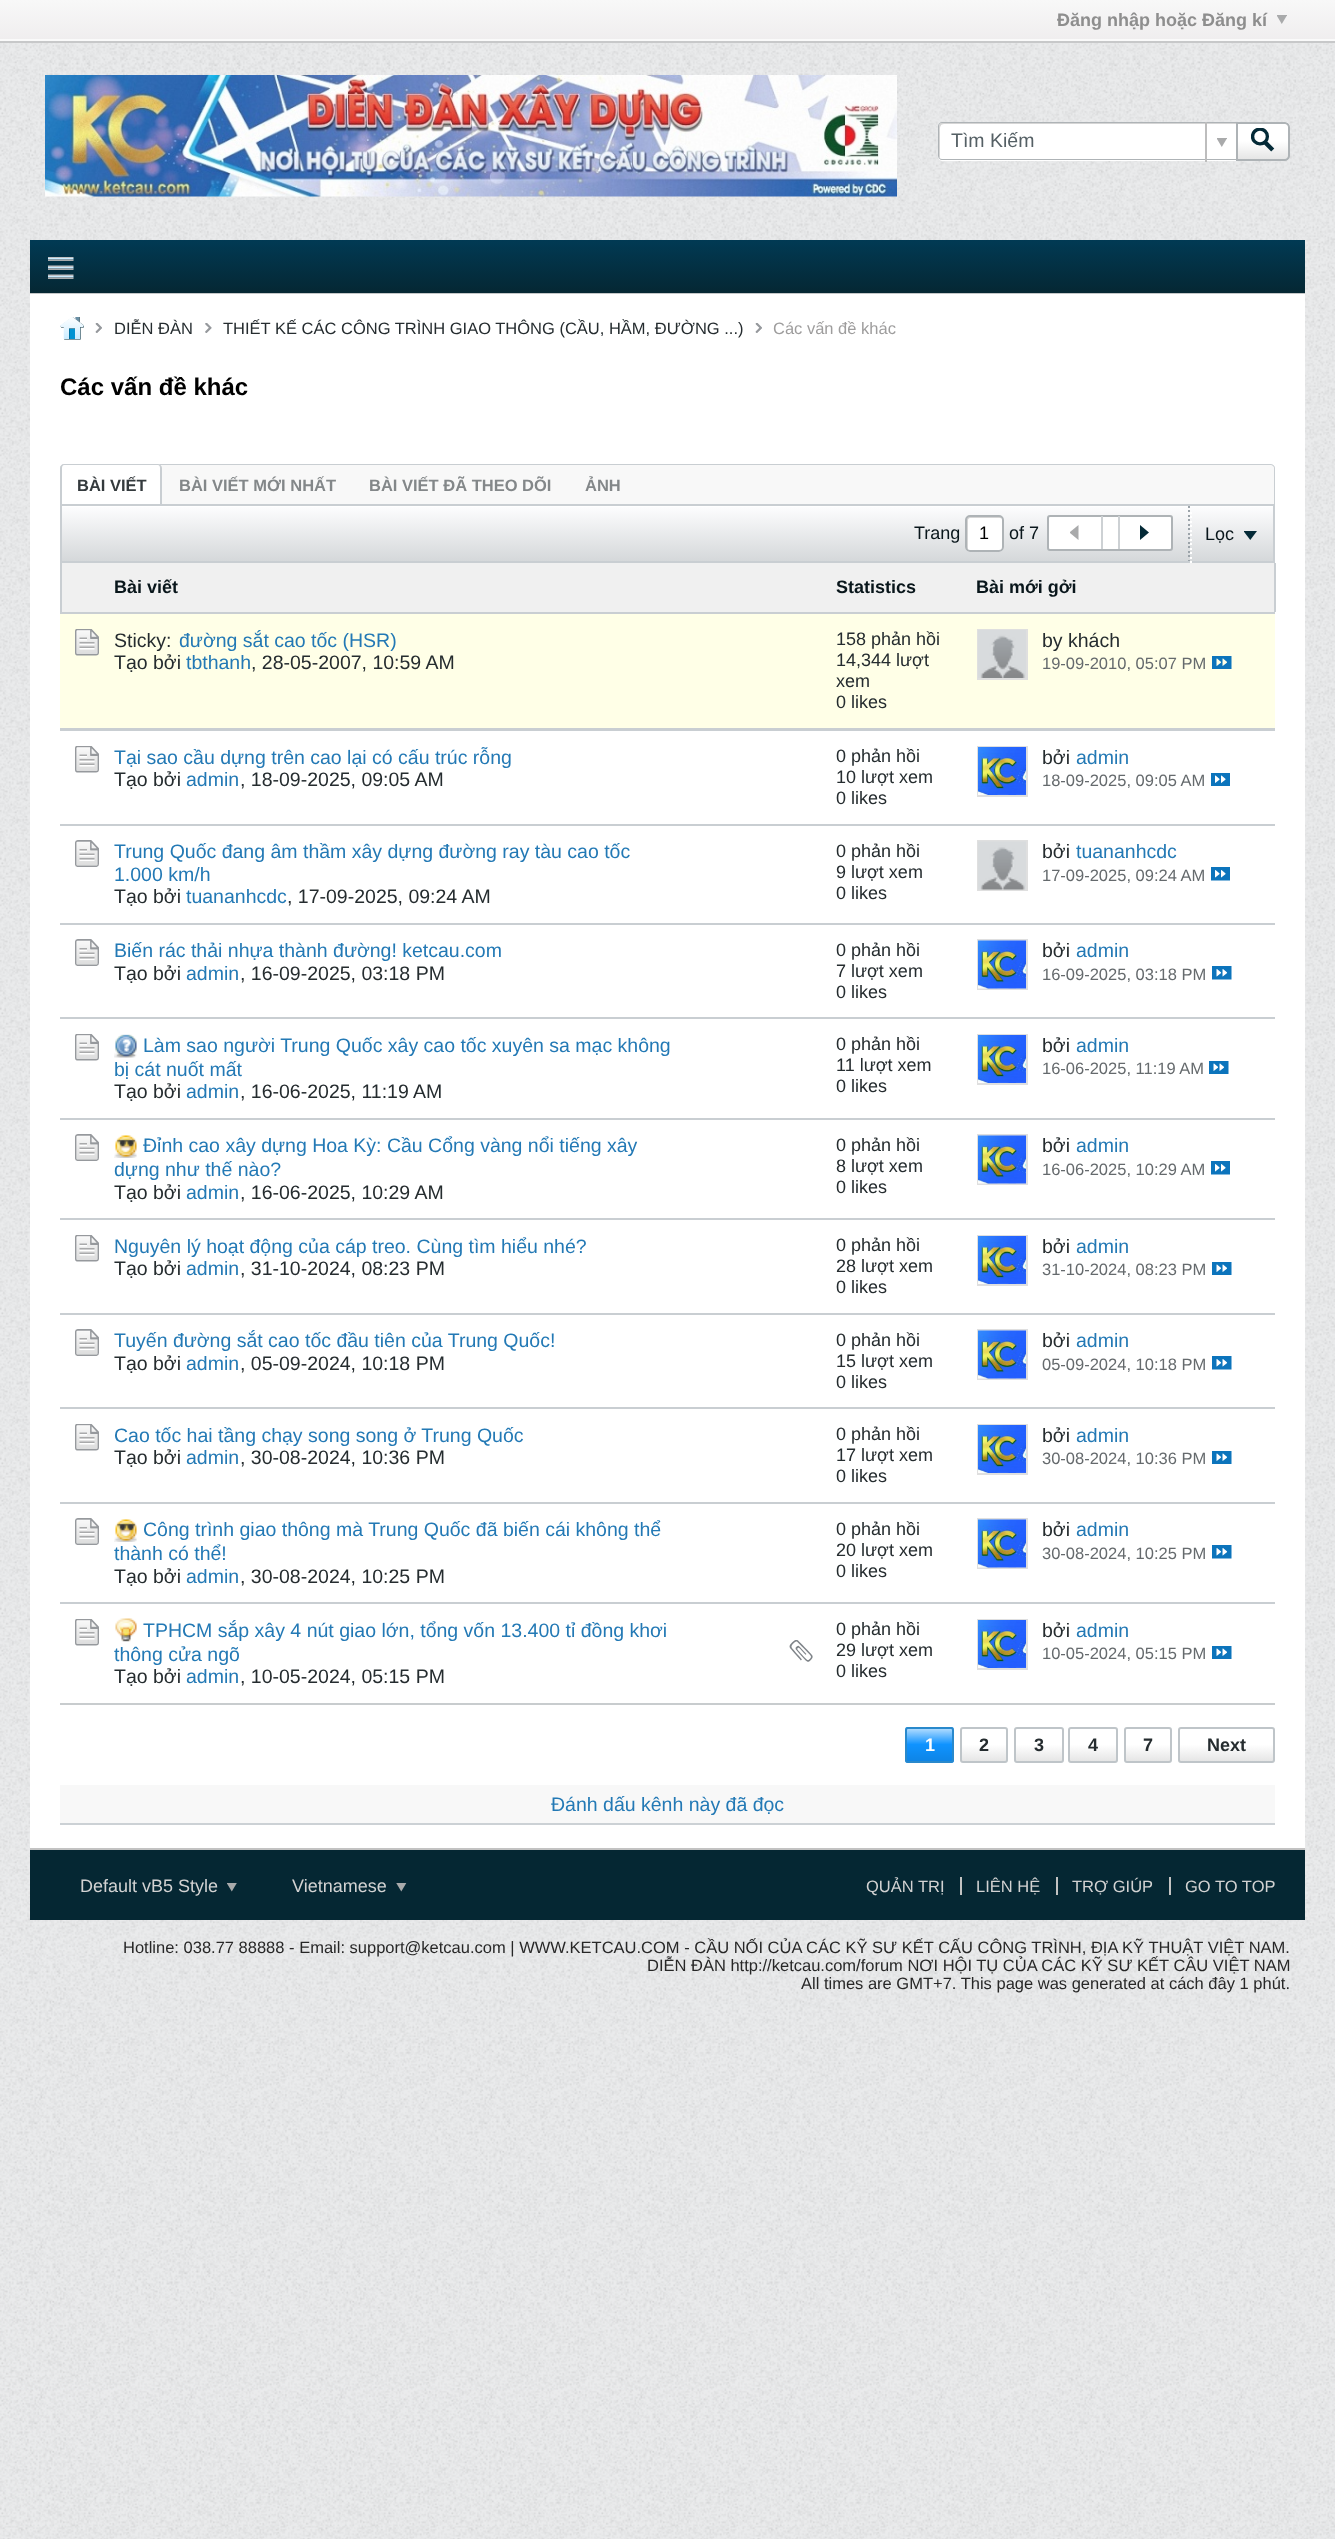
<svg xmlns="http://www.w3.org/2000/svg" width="1335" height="2539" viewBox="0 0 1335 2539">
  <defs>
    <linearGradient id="g1" gradientUnits="userSpaceOnUse" x1="668" y1="0" x2="668" y2="42"><stop offset="0" stop-color="rgb(248,248,248)"/><stop offset="1" stop-color="rgb(239,237,238)"/></linearGradient>
    <clipPath id="clip1"><path d="M1236 122H1285C1288 122 1290 124 1290 127V156C1290 159 1288 161 1285 161H1236Z"/></clipPath>
    <linearGradient id="g2" gradientUnits="userSpaceOnUse" x1="1263" y1="159" x2="1263" y2="123"><stop offset="0" stop-color="rgb(0,0,0)" stop-opacity="0.1"/><stop offset="0.5" stop-color="rgb(0,0,0)" stop-opacity="0"/><stop offset="0.5" stop-color="rgb(255,255,255)" stop-opacity="0"/><stop offset="1" stop-color="rgb(255,255,255)" stop-opacity="0.7"/></linearGradient>
    <linearGradient id="g3" gradientUnits="userSpaceOnUse" x1="668" y1="240" x2="668" y2="293"><stop offset="0" stop-color="rgb(1,58,84)"/><stop offset="1" stop-color="rgb(5,39,51)"/></linearGradient>
    <linearGradient id="g4" gradientUnits="userSpaceOnUse" x1="668" y1="505" x2="668" y2="561"><stop offset="0" stop-color="rgb(254,254,255)"/><stop offset="1" stop-color="rgb(213,216,218)"/></linearGradient>
    <clipPath id="clip2"><rect x="905" y="1727" width="49" height="36" rx="3"/></clipPath>
    <linearGradient id="g5" gradientUnits="userSpaceOnUse" x1="929" y1="1761" x2="929" y2="1728"><stop offset="0" stop-color="rgb(0,0,0)" stop-opacity="0.1"/><stop offset="0.5" stop-color="rgb(0,0,0)" stop-opacity="0"/><stop offset="0.5" stop-color="rgb(255,255,255)" stop-opacity="0"/><stop offset="1" stop-color="rgb(255,255,255)" stop-opacity="0.7"/></linearGradient>
    <clipPath id="clip3"><rect x="960" y="1727" width="48" height="36" rx="3"/></clipPath>
    <linearGradient id="g6" gradientUnits="userSpaceOnUse" x1="984" y1="1761" x2="984" y2="1728"><stop offset="0" stop-color="rgb(230,230,230)"/><stop offset="0.5" stop-color="rgb(255,255,255)"/><stop offset="1" stop-color="rgb(255,255,255)"/></linearGradient>
    <clipPath id="clip4"><rect x="1014" y="1727" width="50" height="36" rx="3"/></clipPath>
    <linearGradient id="g7" gradientUnits="userSpaceOnUse" x1="1039" y1="1761" x2="1039" y2="1728"><stop offset="0" stop-color="rgb(230,230,230)"/><stop offset="0.5" stop-color="rgb(255,255,255)"/><stop offset="1" stop-color="rgb(255,255,255)"/></linearGradient>
    <clipPath id="clip5"><rect x="1068" y="1727" width="50" height="36" rx="3"/></clipPath>
    <linearGradient id="g8" gradientUnits="userSpaceOnUse" x1="1093" y1="1761" x2="1093" y2="1728"><stop offset="0" stop-color="rgb(230,230,230)"/><stop offset="0.5" stop-color="rgb(255,255,255)"/><stop offset="1" stop-color="rgb(255,255,255)"/></linearGradient>
    <clipPath id="clip6"><rect x="1124" y="1727" width="48" height="36" rx="3"/></clipPath>
    <linearGradient id="g9" gradientUnits="userSpaceOnUse" x1="1148" y1="1761" x2="1148" y2="1728"><stop offset="0" stop-color="rgb(230,230,230)"/><stop offset="0.5" stop-color="rgb(255,255,255)"/><stop offset="1" stop-color="rgb(255,255,255)"/></linearGradient>
    <clipPath id="clip7"><rect x="1178" y="1727" width="97" height="36" rx="3"/></clipPath>
    <linearGradient id="g10" gradientUnits="userSpaceOnUse" x1="1226" y1="1761" x2="1226" y2="1728"><stop offset="0" stop-color="rgb(230,230,230)"/><stop offset="0.5" stop-color="rgb(255,255,255)"/><stop offset="1" stop-color="rgb(255,255,255)"/></linearGradient>
  </defs>
  <rect width="100%" height="100%" fill="rgb(234,235,236)"/>
  <image x="0" y="43" width="1335" height="2496" href="pic1.png"/>
  <rect x="0" y="0" width="1335" height="39" fill="url(#g1)"/>
  <text x="1057" y="26" font-family="Liberation Sans" font-size="18" font-weight="bold" fill="rgb(142,142,142)">Đăng nhập hoặc Đăng kí</text>
  <image x="1277" y="15" width="10" height="9" href="pic2.png"/>
  <rect x="0" y="39" width="1335" height="2" fill="rgb(250,250,250)"/>
  <rect x="0" y="41" width="1335" height="2" fill="rgb(199,200,201)"/>
  <rect x="30" y="43" width="1275" height="197" fill="rgb(234,235,236)"/>
  <image x="30" y="43" width="1275" height="197" href="pic3.png"/>
  <image x="45" y="75" width="852" height="122" href="pic4.png"/>
  <path d="M943 122H1236V161H943C940 161 938 159 938 156V127C938 124 940 122 943 122Z" fill="rgb(255,255,255)"/>
  <path d="M944 124H1236V123H942C940 123 939 124 939 126V156C939 157 939 158 940 158V133C940 130 939 124 944 124Z" fill="rgb(213,213,213)"/>
  <path d="M942 122H1236V160H942C940 160 938 158 938 156V126C938 124 940 122 942 122ZM942 123H1236V159H942C940 159 939 158 939 156V126C939 124 940 123 942 123Z" fill="rgb(174,179,182)" fill-rule="evenodd"/>
  <text x="951" y="147" font-family="Liberation Sans" font-size="19.5" fill="rgb(85,96,101)">Tìm Kiếm</text>
  <rect x="1205" y="122" width="2" height="40" fill="rgb(189,189,189)"/>
  <image x="1217" y="138" width="10" height="9" href="pic5.png"/>
  <path d="M1236 122H1285C1288 122 1290 124 1290 127V156C1290 159 1288 161 1285 161H1236Z" fill="rgb(255,255,255)"/>
  <g clip-path="url(#clip1)">
    <rect x="1238" y="123" width="52" height="36" fill="url(#g2)"/>
  </g>
  <path d="M1237 123H1285C1287 123 1289 125 1289 127V156C1289 158 1287 160 1285 160H1237Z" fill="none" stroke="rgb(174,179,182)" stroke-width="2"/>
  <image x="1251" y="128" width="24" height="24" href="pic6.png"/>
  <rect x="30" y="240" width="1275" height="53" fill="url(#g3)"/>
  <rect x="30" y="293" width="1275" height="1" fill="rgb(196,199,200)"/>
  <image x="48" y="257" width="26" height="22" href="pic7.png"/>
  <rect x="30" y="294" width="1275" height="1554" fill="rgb(255,255,255)"/>
  <image x="60" y="317" width="24" height="23" href="pic8.png"/>
  <image x="95" y="323" width="7" height="10" href="pic9.png"/>
  <text x="114" y="334" font-family="Liberation Sans" font-size="16.5" fill="rgb(37,44,47)">DIỄN ĐÀN</text>
  <image x="205" y="323" width="7" height="10" href="pic10.png"/>
  <text x="223" y="334" font-family="Liberation Sans" font-size="16.5" fill="rgb(37,44,47)">THIẾT KẾ CÁC CÔNG TRÌNH GIAO THÔNG (CẦU, HẦM, ĐƯỜNG ...)</text>
  <image x="755" y="323" width="7" height="10" href="pic9.png"/>
  <text x="773" y="334" font-family="Liberation Sans" font-size="16.5" fill="rgb(158,157,157)">Các vấn đề khác</text>
  <text x="60" y="395" font-family="Liberation Sans" font-size="24" font-weight="bold" fill="rgb(0,0,0)">Các vấn đề khác</text>
  <path d="M65 464H1270C1273 464 1275 466 1275 469V504H60V469C60 466 62 464 65 464Z" fill="rgb(248,248,248)"/>
  <path d="M64 464H1270C1273 464 1275 466 1275 468V504H60V468C60 466 62 464 64 464ZM64 465H1270C1272 465 1274 466 1274 468V504H62V468C62 466 63 465 64 465Z" fill="rgb(201,206,210)" fill-rule="evenodd"/>
  <path d="M67 465H1269C1272 465 1274 467 1274 470V504H62V470C62 467 64 465 67 465Z" fill="rgb(248,248,248)"/>
  <path d="M65 464H157C160 464 162 466 162 469V504H60V469C60 466 62 464 65 464Z" fill="rgb(255,255,255)"/>
  <path d="M64 464H158C160 464 162 466 162 468V504H60V468C60 466 62 464 64 464ZM64 465H158C159 465 160 466 160 468V504H62V468C62 466 63 465 64 465Z" fill="rgb(201,206,210)" fill-rule="evenodd"/>
  <text x="77" y="491" font-family="Liberation Sans" font-size="16.5" font-weight="bold" fill="rgb(52,58,61)">BÀI VIẾT</text>
  <g font-family="Liberation Sans" font-size="16.5" font-weight="bold" fill="rgb(131,135,137)">
    <text x="179" y="491">BÀI VIẾT MỚI NHẤT</text>
    <text x="369" y="491">BÀI VIẾT ĐÃ THEO DÕI</text>
    <text x="585" y="491">ẢNH</text>
  </g>
  <rect x="62" y="507" width="1211" height="54" fill="url(#g4)"/>
  <rect x="61" y="505" width="1213" height="57" fill="none" stroke="rgb(201,206,210)" stroke-width="2"/>
  <text x="914" y="539" font-family="Liberation Sans" font-size="18" fill="rgb(9,22,27)">Trang</text>
  <rect x="965" y="515" width="39" height="37" rx="5" fill="rgb(255,255,255)"/>
  <path d="M970 518H1000L1002 518.5C1001.5 517 1000.5 516 999 516H969C967.5 516 966 517.5 966 519V548C966 549.5 967 550.5 968.5 551L968 549V520C968 519 969 518 970 518Z" fill="rgb(213,213,213)"/>
  <rect x="966" y="516" width="37" height="35" rx="4" fill="none" stroke="rgb(174,179,182)" stroke-width="2"/>
  <text x="979" y="539" font-family="Liberation Sans" font-size="18" fill="rgb(0,0,0)">1</text>
  <text x="1009" y="539" font-family="Liberation Sans" font-size="18" fill="rgb(9,22,27)">of 7</text>
  <rect x="1048" y="516" width="124" height="34" rx="2" fill="rgb(255,255,255)" stroke="rgb(174,179,182)" stroke-width="2"/>
  <rect x="1101" y="516" width="2" height="33" fill="rgb(205,209,212)"/>
  <image x="1070" y="525" width="9" height="15" href="pic11.png"/>
  <rect x="1118" y="516" width="2" height="33" fill="rgb(205,209,212)"/>
  <image x="1140" y="525" width="9" height="15" href="pic12.png"/>
  <image x="1188" y="506" width="2" height="55" href="pic13.png"/>
  <image x="1190" y="512" width="2" height="51" href="pic14.png"/>
  <text x="1205" y="540" font-family="Liberation Sans" font-size="18" fill="rgb(9,22,27)">Lọc</text>
  <image x="1244" y="531" width="13" height="9" href="pic15.png"/>
  <rect x="60" y="1703" width="1215" height="2" fill="rgb(200,204,206)"/>
  <rect x="62" y="563" width="1212" height="49" fill="rgb(240,240,240)"/>
  <rect x="60" y="563" width="2" height="49" fill="rgb(201,206,210)"/>
  <g font-family="Liberation Sans" font-size="18" font-weight="bold" fill="rgb(9,22,27)">
    <text x="114" y="593">Bài viết</text>
    <text x="836" y="593">Statistics</text>
  </g>
  <rect x="1274" y="563" width="2" height="49" fill="rgb(201,206,210)"/>
  <text x="976" y="593" font-family="Liberation Sans" font-size="18" font-weight="bold" fill="rgb(9,22,27)">Bài mới gởi</text>
  <rect x="60" y="614" width="1215" height="114" fill="rgb(255,255,231)"/>
  <rect x="60" y="612" width="54" height="2" fill="rgb(201,206,210)"/>
  <image x="75" y="629" width="24" height="27" href="pic16.png"/>
  <rect x="114" y="612" width="1161" height="2" fill="rgb(201,206,210)"/>
  <text x="114" y="647" font-family="Liberation Sans" font-size="19.5" fill="rgb(37,44,47)">Sticky:</text>
  <text x="179" y="647" font-family="Liberation Sans" font-size="19.5" fill="rgb(35,121,181)">đường sắt cao tốc (HSR)</text>
  <text x="114" y="669" font-family="Liberation Sans" font-size="19.5" fill="rgb(37,44,47)">Tạo bởi</text>
  <text x="186" y="669" font-family="Liberation Sans" font-size="19.5" fill="rgb(35,121,181)">tbthanh</text>
  <text x="251" y="669" font-family="Liberation Sans" font-size="19.5" fill="rgb(37,44,47)">, 28-05-2007, 10:59 AM</text>
  <g font-family="Liberation Sans" font-size="18" fill="rgb(37,44,47)">
    <text>
      <tspan x="836" y="645">158 phản hồi</tspan>
      <tspan x="836" y="666">14,344 lượt</tspan>
      <tspan x="836" y="687">xem</tspan>
      <tspan x="836" y="708">0 likes</tspan>
    </text>
  </g>
  <rect x="978" y="630" width="49" height="49" fill="none" stroke="rgb(223,223,223)" stroke-width="2"/>
  <image x="978" y="630" width="48" height="48" href="pic17.png"/>
  <text x="1042" y="647" font-family="Liberation Sans" font-size="19.5" fill="rgb(37,44,47)">by khách</text>
  <text x="1042" y="669" font-family="Liberation Sans" font-size="16.5" fill="rgb(101,106,109)">19-09-2010, 05:07 PM</text>
  <image x="1212" y="656" width="20" height="13" href="pic18.png"/>
  <rect x="60" y="728" width="54" height="3" fill="rgb(201,206,210)"/>
  <image x="75" y="746" width="24" height="27" href="pic19.png"/>
  <rect x="114" y="728" width="1161" height="3" fill="rgb(201,206,210)"/>
  <text x="114" y="764" font-family="Liberation Sans" font-size="19.5" fill="rgb(35,121,181)">Tại sao cầu dựng trên cao lại có cấu trúc rỗng</text>
  <text x="114" y="786" font-family="Liberation Sans" font-size="19.5" fill="rgb(37,44,47)">Tạo bởi</text>
  <text x="186" y="786" font-family="Liberation Sans" font-size="19.5" fill="rgb(35,121,181)">admin</text>
  <text x="240" y="786" font-family="Liberation Sans" font-size="19.5" fill="rgb(37,44,47)">, 18-09-2025, 09:05 AM</text>
  <g font-family="Liberation Sans" font-size="18" fill="rgb(37,44,47)">
    <text>
      <tspan x="836" y="762">0 phản hồi</tspan>
      <tspan x="836" y="783">10 lượt xem</tspan>
      <tspan x="836" y="804">0 likes</tspan>
    </text>
  </g>
  <rect x="978" y="747" width="49" height="49" fill="none" stroke="rgb(223,223,223)" stroke-width="2"/>
  <image x="978" y="747" width="48" height="48" href="pic20.png"/>
  <text x="1042" y="764" font-family="Liberation Sans" font-size="19.5" fill="rgb(37,44,47)">bởi</text>
  <text x="1076" y="764" font-family="Liberation Sans" font-size="19.5" fill="rgb(35,121,181)">admin</text>
  <text x="1042" y="786" font-family="Liberation Sans" font-size="16.5" fill="rgb(101,106,109)">18-09-2025, 09:05 AM</text>
  <image x="1211" y="773" width="19" height="13" href="pic21.png"/>
  <rect x="60" y="824" width="54" height="2" fill="rgb(201,206,210)"/>
  <image x="75" y="840" width="24" height="27" href="pic22.png"/>
  <rect x="114" y="824" width="1161" height="2" fill="rgb(201,206,210)"/>
  <g font-family="Liberation Sans" font-size="19.5" fill="rgb(35,121,181)">
    <text>
      <tspan x="114" y="858">Trung Quốc đang âm thầm xây dựng đường ray tàu cao tốc</tspan>
      <tspan x="114" y="881">1.000 km/h</tspan>
    </text>
  </g>
  <text x="114" y="903" font-family="Liberation Sans" font-size="19.5" fill="rgb(37,44,47)">Tạo bởi</text>
  <text x="186" y="903" font-family="Liberation Sans" font-size="19.5" fill="rgb(35,121,181)">tuananhcdc</text>
  <text x="287" y="903" font-family="Liberation Sans" font-size="19.5" fill="rgb(37,44,47)">, 17-09-2025, 09:24 AM</text>
  <g font-family="Liberation Sans" font-size="18" fill="rgb(37,44,47)">
    <text>
      <tspan x="836" y="857">0 phản hồi</tspan>
      <tspan x="836" y="878">9 lượt xem</tspan>
      <tspan x="836" y="899">0 likes</tspan>
    </text>
  </g>
  <rect x="978" y="841" width="49" height="49" fill="none" stroke="rgb(223,223,223)" stroke-width="2"/>
  <image x="978" y="841" width="48" height="49" href="pic23.png"/>
  <text x="1042" y="858" font-family="Liberation Sans" font-size="19.5" fill="rgb(37,44,47)">bởi</text>
  <text x="1076" y="858" font-family="Liberation Sans" font-size="19.5" fill="rgb(35,121,181)">tuananhcdc</text>
  <text x="1042" y="881" font-family="Liberation Sans" font-size="16.5" fill="rgb(101,106,109)">17-09-2025, 09:24 AM</text>
  <image x="1211" y="867" width="19" height="14" href="pic24.png"/>
  <rect x="60" y="923" width="54" height="2" fill="rgb(201,206,210)"/>
  <image x="75" y="939" width="24" height="27" href="pic22.png"/>
  <rect x="114" y="923" width="1161" height="2" fill="rgb(201,206,210)"/>
  <text x="114" y="957" font-family="Liberation Sans" font-size="19.5" fill="rgb(35,121,181)">Biến rác thải nhựa thành đường! ketcau.com</text>
  <text x="114" y="980" font-family="Liberation Sans" font-size="19.5" fill="rgb(37,44,47)">Tạo bởi</text>
  <text x="186" y="980" font-family="Liberation Sans" font-size="19.5" fill="rgb(35,121,181)">admin</text>
  <text x="240" y="980" font-family="Liberation Sans" font-size="19.5" fill="rgb(37,44,47)">, 16-09-2025, 03:18 PM</text>
  <g font-family="Liberation Sans" font-size="18" fill="rgb(37,44,47)">
    <text>
      <tspan x="836" y="956">0 phản hồi</tspan>
      <tspan x="836" y="977">7 lượt xem</tspan>
      <tspan x="836" y="998">0 likes</tspan>
    </text>
  </g>
  <rect x="978" y="940" width="49" height="49" fill="none" stroke="rgb(223,223,223)" stroke-width="2"/>
  <image x="978" y="940" width="48" height="49" href="pic25.png"/>
  <text x="1042" y="957" font-family="Liberation Sans" font-size="19.5" fill="rgb(37,44,47)">bởi</text>
  <text x="1076" y="957" font-family="Liberation Sans" font-size="19.5" fill="rgb(35,121,181)">admin</text>
  <text x="1042" y="980" font-family="Liberation Sans" font-size="16.5" fill="rgb(101,106,109)">16-09-2025, 03:18 PM</text>
  <image x="1212" y="966" width="20" height="14" href="pic26.png"/>
  <rect x="60" y="1017" width="54" height="2" fill="rgb(201,206,210)"/>
  <image x="75" y="1034" width="24" height="27" href="pic27.png"/>
  <rect x="114" y="1017" width="1161" height="2" fill="rgb(201,206,210)"/>
  <image x="114" y="1034" width="23" height="24" href="pic28.png"/>
  <g font-family="Liberation Sans" font-size="19.5" fill="rgb(35,121,181)">
    <text x="143" y="1052">Làm sao người Trung Quốc xây cao tốc xuyên sa mạc không</text>
    <text x="114" y="1076">bị cát nuốt mất</text>
  </g>
  <text x="114" y="1098" font-family="Liberation Sans" font-size="19.5" fill="rgb(37,44,47)">Tạo bởi</text>
  <text x="186" y="1098" font-family="Liberation Sans" font-size="19.5" fill="rgb(35,121,181)">admin</text>
  <text x="240" y="1098" font-family="Liberation Sans" font-size="19.5" fill="rgb(37,44,47)">, 16-06-2025, 11:19 AM</text>
  <g font-family="Liberation Sans" font-size="18" fill="rgb(37,44,47)">
    <text>
      <tspan x="836" y="1050">0 phản hồi</tspan>
      <tspan x="836" y="1071">11 lượt xem</tspan>
      <tspan x="836" y="1092">0 likes</tspan>
    </text>
  </g>
  <rect x="978" y="1035" width="49" height="49" fill="none" stroke="rgb(223,223,223)" stroke-width="2"/>
  <image x="978" y="1035" width="48" height="48" href="pic29.png"/>
  <text x="1042" y="1052" font-family="Liberation Sans" font-size="19.5" fill="rgb(37,44,47)">bởi</text>
  <text x="1076" y="1052" font-family="Liberation Sans" font-size="19.5" fill="rgb(35,121,181)">admin</text>
  <text x="1042" y="1074" font-family="Liberation Sans" font-size="16.5" fill="rgb(101,106,109)">16-06-2025, 11:19 AM</text>
  <image x="1209" y="1061" width="20" height="13" href="pic30.png"/>
  <rect x="60" y="1118" width="54" height="2" fill="rgb(201,206,210)"/>
  <image x="75" y="1134" width="24" height="27" href="pic22.png"/>
  <rect x="114" y="1118" width="1161" height="2" fill="rgb(201,206,210)"/>
  <image x="114" y="1135" width="23" height="23" href="pic31.png"/>
  <g font-family="Liberation Sans" font-size="19.5" fill="rgb(35,121,181)">
    <text x="143" y="1152">Đỉnh cao xây dựng Hoa Kỳ: Cầu Cổng vàng nổi tiếng xây</text>
    <text x="114" y="1176">dựng như thế nào?</text>
  </g>
  <text x="114" y="1199" font-family="Liberation Sans" font-size="19.5" fill="rgb(37,44,47)">Tạo bởi</text>
  <text x="186" y="1199" font-family="Liberation Sans" font-size="19.5" fill="rgb(35,121,181)">admin</text>
  <text x="240" y="1199" font-family="Liberation Sans" font-size="19.5" fill="rgb(37,44,47)">, 16-06-2025, 10:29 AM</text>
  <g font-family="Liberation Sans" font-size="18" fill="rgb(37,44,47)">
    <text>
      <tspan x="836" y="1151">0 phản hồi</tspan>
      <tspan x="836" y="1172">8 lượt xem</tspan>
      <tspan x="836" y="1193">0 likes</tspan>
    </text>
  </g>
  <rect x="978" y="1135" width="49" height="49" fill="none" stroke="rgb(223,223,223)" stroke-width="2"/>
  <image x="978" y="1135" width="48" height="49" href="pic25.png"/>
  <text x="1042" y="1152" font-family="Liberation Sans" font-size="19.5" fill="rgb(37,44,47)">bởi</text>
  <text x="1076" y="1152" font-family="Liberation Sans" font-size="19.5" fill="rgb(35,121,181)">admin</text>
  <text x="1042" y="1175" font-family="Liberation Sans" font-size="16.5" fill="rgb(101,106,109)">16-06-2025, 10:29 AM</text>
  <image x="1211" y="1161" width="19" height="14" href="pic24.png"/>
  <rect x="60" y="1218" width="54" height="2" fill="rgb(201,206,210)"/>
  <image x="75" y="1235" width="24" height="27" href="pic27.png"/>
  <rect x="114" y="1218" width="1161" height="2" fill="rgb(201,206,210)"/>
  <text x="114" y="1253" font-family="Liberation Sans" font-size="19.5" fill="rgb(35,121,181)">Nguyên lý hoạt động của cáp treo. Cùng tìm hiểu nhé?</text>
  <text x="114" y="1275" font-family="Liberation Sans" font-size="19.5" fill="rgb(37,44,47)">Tạo bởi</text>
  <text x="186" y="1275" font-family="Liberation Sans" font-size="19.5" fill="rgb(35,121,181)">admin</text>
  <text x="240" y="1275" font-family="Liberation Sans" font-size="19.5" fill="rgb(37,44,47)">, 31-10-2024, 08:23 PM</text>
  <g font-family="Liberation Sans" font-size="18" fill="rgb(37,44,47)">
    <text>
      <tspan x="836" y="1251">0 phản hồi</tspan>
      <tspan x="836" y="1272">28 lượt xem</tspan>
      <tspan x="836" y="1293">0 likes</tspan>
    </text>
  </g>
  <rect x="978" y="1236" width="49" height="49" fill="none" stroke="rgb(223,223,223)" stroke-width="2"/>
  <image x="978" y="1236" width="48" height="48" href="pic32.png"/>
  <text x="1042" y="1253" font-family="Liberation Sans" font-size="19.5" fill="rgb(37,44,47)">bởi</text>
  <text x="1076" y="1253" font-family="Liberation Sans" font-size="19.5" fill="rgb(35,121,181)">admin</text>
  <text x="1042" y="1275" font-family="Liberation Sans" font-size="16.5" fill="rgb(101,106,109)">31-10-2024, 08:23 PM</text>
  <image x="1212" y="1262" width="20" height="13" href="pic33.png"/>
  <rect x="60" y="1313" width="54" height="2" fill="rgb(201,206,210)"/>
  <image x="75" y="1329" width="24" height="27" href="pic22.png"/>
  <rect x="114" y="1313" width="1161" height="2" fill="rgb(201,206,210)"/>
  <text x="114" y="1347" font-family="Liberation Sans" font-size="19.5" fill="rgb(35,121,181)">Tuyến đường sắt cao tốc đầu tiên của Trung Quốc!</text>
  <text x="114" y="1370" font-family="Liberation Sans" font-size="19.5" fill="rgb(37,44,47)">Tạo bởi</text>
  <text x="186" y="1370" font-family="Liberation Sans" font-size="19.5" fill="rgb(35,121,181)">admin</text>
  <text x="240" y="1370" font-family="Liberation Sans" font-size="19.5" fill="rgb(37,44,47)">, 05-09-2024, 10:18 PM</text>
  <g font-family="Liberation Sans" font-size="18" fill="rgb(37,44,47)">
    <text>
      <tspan x="836" y="1346">0 phản hồi</tspan>
      <tspan x="836" y="1367">15 lượt xem</tspan>
      <tspan x="836" y="1388">0 likes</tspan>
    </text>
  </g>
  <rect x="978" y="1330" width="49" height="49" fill="none" stroke="rgb(223,223,223)" stroke-width="2"/>
  <image x="978" y="1330" width="48" height="49" href="pic25.png"/>
  <text x="1042" y="1347" font-family="Liberation Sans" font-size="19.5" fill="rgb(37,44,47)">bởi</text>
  <text x="1076" y="1347" font-family="Liberation Sans" font-size="19.5" fill="rgb(35,121,181)">admin</text>
  <text x="1042" y="1370" font-family="Liberation Sans" font-size="16.5" fill="rgb(101,106,109)">05-09-2024, 10:18 PM</text>
  <image x="1212" y="1356" width="20" height="14" href="pic26.png"/>
  <rect x="60" y="1407" width="54" height="2" fill="rgb(201,206,210)"/>
  <image x="75" y="1424" width="24" height="27" href="pic27.png"/>
  <rect x="114" y="1407" width="1161" height="2" fill="rgb(201,206,210)"/>
  <text x="114" y="1442" font-family="Liberation Sans" font-size="19.5" fill="rgb(35,121,181)">Cao tốc hai tầng chạy song song ở Trung Quốc</text>
  <text x="114" y="1464" font-family="Liberation Sans" font-size="19.5" fill="rgb(37,44,47)">Tạo bởi</text>
  <text x="186" y="1464" font-family="Liberation Sans" font-size="19.5" fill="rgb(35,121,181)">admin</text>
  <text x="240" y="1464" font-family="Liberation Sans" font-size="19.5" fill="rgb(37,44,47)">, 30-08-2024, 10:36 PM</text>
  <g font-family="Liberation Sans" font-size="18" fill="rgb(37,44,47)">
    <text>
      <tspan x="836" y="1440">0 phản hồi</tspan>
      <tspan x="836" y="1461">17 lượt xem</tspan>
      <tspan x="836" y="1482">0 likes</tspan>
    </text>
  </g>
  <rect x="978" y="1425" width="49" height="49" fill="none" stroke="rgb(223,223,223)" stroke-width="2"/>
  <image x="978" y="1425" width="48" height="48" href="pic20.png"/>
  <text x="1042" y="1442" font-family="Liberation Sans" font-size="19.5" fill="rgb(37,44,47)">bởi</text>
  <text x="1076" y="1442" font-family="Liberation Sans" font-size="19.5" fill="rgb(35,121,181)">admin</text>
  <text x="1042" y="1464" font-family="Liberation Sans" font-size="16.5" fill="rgb(101,106,109)">30-08-2024, 10:36 PM</text>
  <image x="1212" y="1451" width="20" height="13" href="pic30.png"/>
  <rect x="60" y="1502" width="54" height="2" fill="rgb(201,206,210)"/>
  <image x="75" y="1518" width="24" height="27" href="pic34.png"/>
  <rect x="114" y="1502" width="1161" height="2" fill="rgb(201,206,210)"/>
  <image x="114" y="1519" width="23" height="23" href="pic31.png"/>
  <g font-family="Liberation Sans" font-size="19.5" fill="rgb(35,121,181)">
    <text x="143" y="1536">Công trình giao thông mà Trung Quốc đã biến cái không thể</text>
    <text x="114" y="1560">thành có thể!</text>
  </g>
  <text x="114" y="1583" font-family="Liberation Sans" font-size="19.5" fill="rgb(37,44,47)">Tạo bởi</text>
  <text x="186" y="1583" font-family="Liberation Sans" font-size="19.5" fill="rgb(35,121,181)">admin</text>
  <text x="240" y="1583" font-family="Liberation Sans" font-size="19.5" fill="rgb(37,44,47)">, 30-08-2024, 10:25 PM</text>
  <g font-family="Liberation Sans" font-size="18" fill="rgb(37,44,47)">
    <text>
      <tspan x="836" y="1535">0 phản hồi</tspan>
      <tspan x="836" y="1556">20 lượt xem</tspan>
      <tspan x="836" y="1577">0 likes</tspan>
    </text>
  </g>
  <rect x="978" y="1519" width="49" height="49" fill="none" stroke="rgb(223,223,223)" stroke-width="2"/>
  <image x="978" y="1519" width="48" height="49" href="pic25.png"/>
  <text x="1042" y="1536" font-family="Liberation Sans" font-size="19.5" fill="rgb(37,44,47)">bởi</text>
  <text x="1076" y="1536" font-family="Liberation Sans" font-size="19.5" fill="rgb(35,121,181)">admin</text>
  <text x="1042" y="1559" font-family="Liberation Sans" font-size="16.5" fill="rgb(101,106,109)">30-08-2024, 10:25 PM</text>
  <image x="1212" y="1545" width="20" height="14" href="pic26.png"/>
  <rect x="60" y="1602" width="54" height="2" fill="rgb(201,206,210)"/>
  <image x="75" y="1619" width="24" height="27" href="pic27.png"/>
  <rect x="114" y="1602" width="1161" height="2" fill="rgb(201,206,210)"/>
  <image x="789" y="1640" width="24" height="22" href="pic35.png"/>
  <image x="115" y="1618" width="22" height="24" href="pic36.png"/>
  <g font-family="Liberation Sans" font-size="19.5" fill="rgb(35,121,181)">
    <text x="143" y="1637">TPHCM sắp xây 4 nút giao lớn, tổng vốn 13.400 tỉ đồng khơi</text>
    <text x="114" y="1661">thông cửa ngõ</text>
  </g>
  <text x="114" y="1683" font-family="Liberation Sans" font-size="19.5" fill="rgb(37,44,47)">Tạo bởi</text>
  <text x="186" y="1683" font-family="Liberation Sans" font-size="19.5" fill="rgb(35,121,181)">admin</text>
  <text x="240" y="1683" font-family="Liberation Sans" font-size="19.5" fill="rgb(37,44,47)">, 10-05-2024, 05:15 PM</text>
  <g font-family="Liberation Sans" font-size="18" fill="rgb(37,44,47)">
    <text>
      <tspan x="836" y="1635">0 phản hồi</tspan>
      <tspan x="836" y="1656">29 lượt xem</tspan>
      <tspan x="836" y="1677">0 likes</tspan>
    </text>
  </g>
  <rect x="978" y="1620" width="49" height="49" fill="none" stroke="rgb(223,223,223)" stroke-width="2"/>
  <image x="978" y="1620" width="48" height="48" href="pic20.png"/>
  <text x="1042" y="1637" font-family="Liberation Sans" font-size="19.5" fill="rgb(37,44,47)">bởi</text>
  <text x="1076" y="1637" font-family="Liberation Sans" font-size="19.5" fill="rgb(35,121,181)">admin</text>
  <text x="1042" y="1659" font-family="Liberation Sans" font-size="16.5" fill="rgb(101,106,109)">10-05-2024, 05:15 PM</text>
  <image x="1212" y="1646" width="20" height="13" href="pic30.png"/>
  <rect x="905" y="1727" width="49" height="36" rx="3" fill="rgb(15,147,255)"/>
  <g clip-path="url(#clip2)">
    <rect x="905" y="1728" width="49" height="33" fill="url(#g5)"/>
  </g>
  <rect x="906" y="1728" width="47" height="34" rx="2" fill="none" stroke="rgb(41,137,204)" stroke-width="2"/>
  <text x="925" y="1751" font-family="Liberation Sans" font-size="18" font-weight="bold" fill="rgb(255,255,255)">1</text>
  <g clip-path="url(#clip3)">
    <rect x="960" y="1728" width="48" height="33" fill="url(#g6)"/>
  </g>
  <rect x="961" y="1728" width="46" height="34" rx="2" fill="none" stroke="rgb(191,197,201)" stroke-width="2"/>
  <text x="979" y="1751" font-family="Liberation Sans" font-size="18" font-weight="bold" fill="rgb(37,44,47)">2</text>
  <g clip-path="url(#clip4)">
    <rect x="1014" y="1728" width="50" height="33" fill="url(#g7)"/>
  </g>
  <rect x="1015" y="1728" width="48" height="34" rx="2" fill="none" stroke="rgb(191,197,201)" stroke-width="2"/>
  <text x="1034" y="1751" font-family="Liberation Sans" font-size="18" font-weight="bold" fill="rgb(37,44,47)">3</text>
  <g clip-path="url(#clip5)">
    <rect x="1068" y="1728" width="50" height="33" fill="url(#g8)"/>
  </g>
  <rect x="1069" y="1728" width="48" height="34" rx="2" fill="none" stroke="rgb(191,197,201)" stroke-width="2"/>
  <text x="1088" y="1751" font-family="Liberation Sans" font-size="18" font-weight="bold" fill="rgb(37,44,47)">4</text>
  <g clip-path="url(#clip6)">
    <rect x="1124" y="1728" width="48" height="33" fill="url(#g9)"/>
  </g>
  <rect x="1125" y="1728" width="46" height="34" rx="2" fill="none" stroke="rgb(191,197,201)" stroke-width="2"/>
  <text x="1143" y="1751" font-family="Liberation Sans" font-size="18" font-weight="bold" fill="rgb(37,44,47)">7</text>
  <g clip-path="url(#clip7)">
    <rect x="1178" y="1728" width="97" height="33" fill="url(#g10)"/>
  </g>
  <rect x="1179" y="1728" width="95" height="34" rx="2" fill="none" stroke="rgb(191,197,201)" stroke-width="2"/>
  <text x="1207" y="1751" font-family="Liberation Sans" font-size="18" font-weight="bold" fill="rgb(37,44,47)">Next</text>
  <rect x="60" y="1785" width="1215" height="38" fill="rgb(248,248,248)"/>
  <rect x="60" y="1823" width="1215" height="2" fill="rgb(204,209,213)"/>
  <text x="551" y="1811" font-family="Liberation Sans" font-size="19.5" fill="rgb(35,121,181)">Đánh dấu kênh này đã đọc</text>
  <rect x="30" y="1850" width="1275" height="70" fill="rgb(5,39,51)"/>
  <rect x="30" y="1848" width="1275" height="2" fill="rgb(194,194,194)"/>
  <text x="80" y="1892" font-family="Liberation Sans" font-size="18" fill="rgb(210,210,210)">Default vB5 Style</text>
  <image x="227" y="1883" width="10" height="9" href="pic37.png"/>
  <text x="292" y="1892" font-family="Liberation Sans" font-size="18" fill="rgb(210,210,210)">Vietnamese</text>
  <image x="396" y="1883" width="11" height="9" href="pic38.png"/>
  <g font-family="Liberation Sans" font-size="16.5" fill="rgb(210,210,210)">
    <text x="866" y="1892">QUẢN TRỊ</text>
    <text x="976" y="1892">LIÊN HỆ</text>
  </g>
  <rect x="960" y="1877" width="2" height="18" fill="rgb(194,194,194)"/>
  <text x="1072" y="1892" font-family="Liberation Sans" font-size="16.5" fill="rgb(210,210,210)">TRỢ GIÚP</text>
  <rect x="1056" y="1877" width="2" height="18" fill="rgb(194,194,194)"/>
  <text x="1185" y="1892" font-family="Liberation Sans" font-size="16.5" fill="rgb(210,210,210)">GO TO TOP</text>
  <rect x="1169" y="1877" width="2" height="18" fill="rgb(194,194,194)"/>
  <g font-family="Liberation Sans" font-size="16.5" fill="rgb(39,39,39)">
    <text x="123" y="1953">Hotline: 038.77 88888 - Email: support@ketcau.com | WWW.KETCAU.COM - CẦU NỐI CỦA CÁC KỸ SƯ KẾT CẤU CÔNG TRÌNH, ĐỊA KỸ THUẬT VIỆT NAM.</text>
    <text x="647" y="1971">DIỄN ĐÀN http://ketcau.com/forum NƠI HỘI TỤ CỦA CÁC KỸ SƯ KẾT CÂU VIỆT NAM</text>
    <text x="801" y="1989">All times are GMT+7. This page was generated at cách đây 1 phút.</text>
  </g>
</svg>
